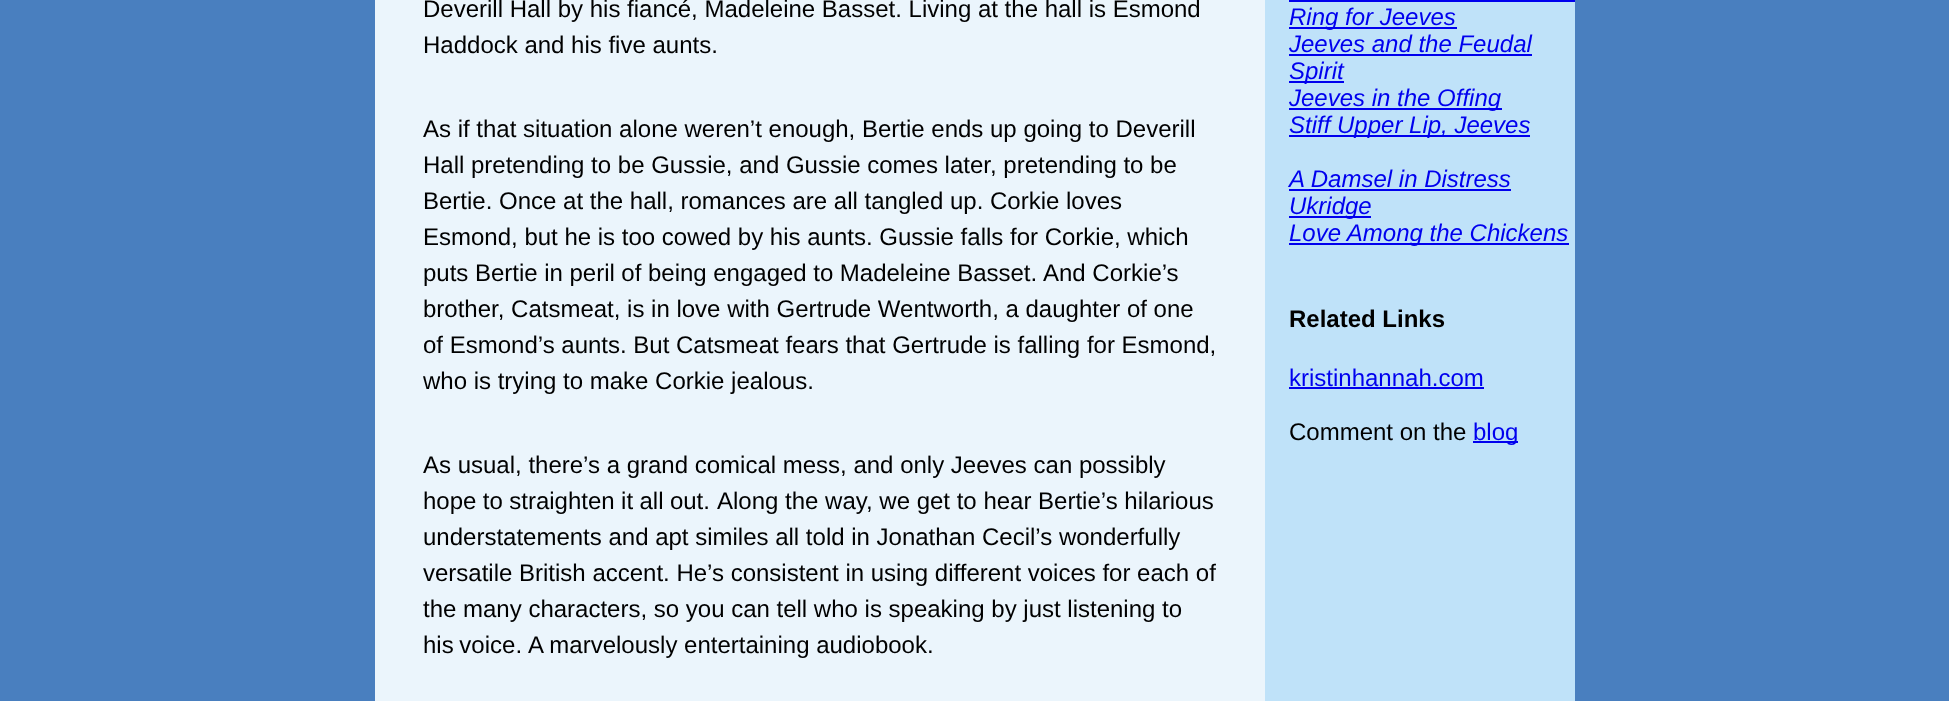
<svg xmlns="http://www.w3.org/2000/svg" width="1949" height="701" viewBox="0 0 1949 701">
  <rect width="100%" height="100%" fill="rgb(73,127,191)"/>
  <rect x="375" y="0" width="890" height="701" fill="rgb(235,245,252)"/>
  <g font-family="Liberation Sans" font-size="24" fill="rgb(0,0,0)">
    <text>
      <tspan x="423" y="17">Deverill Hall by his fiancé, Madeleine Basset. Living at the hall is Esmond</tspan>
      <tspan x="423" y="53">Haddock and his five aunts.</tspan>
    </text>
    <text>
      <tspan x="423" y="137">As if that situation alone weren’t enough, Bertie ends up going to Deverill</tspan>
      <tspan x="423" y="173">Hall pretending to be Gussie, and Gussie comes later, pretending to be</tspan>
      <tspan x="423" y="209">Bertie. Once at the hall, romances are all tangled up. Corkie loves</tspan>
      <tspan x="423" y="245">Esmond, but he is too cowed by his aunts. Gussie falls for Corkie, which</tspan>
      <tspan x="423" y="281" word-spacing="-0.1">puts Bertie in peril of being engaged to Madeleine Basset.</tspan>
    </text>
    <text x="1043" y="281">And Corkie’s</text>
    <text>
      <tspan x="423" y="317">brother, Catsmeat, is in love with Gertrude Wentworth, a daughter of one</tspan>
      <tspan x="423" y="353">of Esmond’s aunts. But Catsmeat fears that Gertrude is falling for Esmond,</tspan>
      <tspan x="423" y="389">who is trying to make Corkie jealous.</tspan>
    </text>
    <text>
      <tspan x="423" y="473">As usual, there’s a grand comical mess, and only Jeeves can possibly</tspan>
      <tspan x="423" y="509" word-spacing="-0.25">hope to straighten it all out.</tspan>
    </text>
    <text x="717" y="509">Along the way, we get to hear Bertie’s hilarious</text>
    <text>
      <tspan x="423" y="545">understatements and apt similes all told in Jonathan Cecil’s wonderfully</tspan>
      <tspan x="423" y="581">versatile British accent. He’s consistent in using different voices for each of</tspan>
      <tspan x="423" y="617">the many characters, so you can tell who is speaking by just listening to</tspan>
      <tspan x="423" y="653" word-spacing="-1">his voice.</tspan>
    </text>
    <text x="528" y="653">A marvelously entertaining audiobook.</text>
  </g>
  <rect x="1265" y="0" width="310" height="701" fill="rgb(191,226,249)"/>
  <rect x="1289" y="27" width="168" height="2" fill="rgb(0,0,238)"/>
  <text x="1289" y="25" font-family="Liberation Sans" font-size="24" font-style="italic" fill="rgb(0,0,238)">Ring for Jeeves</text>
  <rect x="1289" y="0" width="286" height="2" fill="rgb(0,0,238)"/>
  <text x="1289" y="52" font-family="Liberation Sans" font-size="24" font-style="italic" fill="rgb(0,0,238)">Jeeves and the Feudal</text>
  <rect x="1289" y="54" width="243" height="2" fill="rgb(0,0,238)"/>
  <rect x="1289" y="81" width="55" height="2" fill="rgb(0,0,238)"/>
  <text x="1289" y="79" font-family="Liberation Sans" font-size="24" font-style="italic" fill="rgb(0,0,238)">Spirit</text>
  <rect x="1289" y="108" width="213" height="2" fill="rgb(0,0,238)"/>
  <text x="1289" y="106" font-family="Liberation Sans" font-size="24" font-style="italic" fill="rgb(0,0,238)">Jeeves in the Offing</text>
  <rect x="1289" y="135" width="241" height="2" fill="rgb(0,0,238)"/>
  <g font-family="Liberation Sans" font-size="24" font-style="italic" fill="rgb(0,0,238)">
    <text x="1289" y="133">Stiff Upper Lip, Jeeves</text>
    <text x="1289" y="187">A Damsel in Distress</text>
  </g>
  <rect x="1289" y="189" width="222" height="2" fill="rgb(0,0,238)"/>
  <rect x="1289" y="216" width="82" height="2" fill="rgb(0,0,238)"/>
  <text x="1289" y="214" font-family="Liberation Sans" font-size="24" font-style="italic" fill="rgb(0,0,238)">Ukridge</text>
  <rect x="1289" y="243" width="280" height="2" fill="rgb(0,0,238)"/>
  <text x="1289" y="241" font-family="Liberation Sans" font-size="24" font-style="italic" fill="rgb(0,0,238)">Love Among the Chickens</text>
  <text x="1289" y="327" font-family="Liberation Sans" font-size="24" font-weight="bold" fill="rgb(0,0,0)">Related Links</text>
  <text x="1289" y="386" font-family="Liberation Sans" font-size="24" fill="rgb(0,0,238)">kristinhannah.com</text>
  <rect x="1289" y="387" width="195" height="2" fill="rgb(0,0,238)"/>
  <text x="1289" y="440" font-family="Liberation Sans" font-size="24" fill="rgb(0,0,0)">Comment on the</text>
  <rect x="1473" y="441" width="45" height="2" fill="rgb(0,0,238)"/>
  <text x="1473" y="440" font-family="Liberation Sans" font-size="24" fill="rgb(0,0,238)">blog</text>
</svg>
